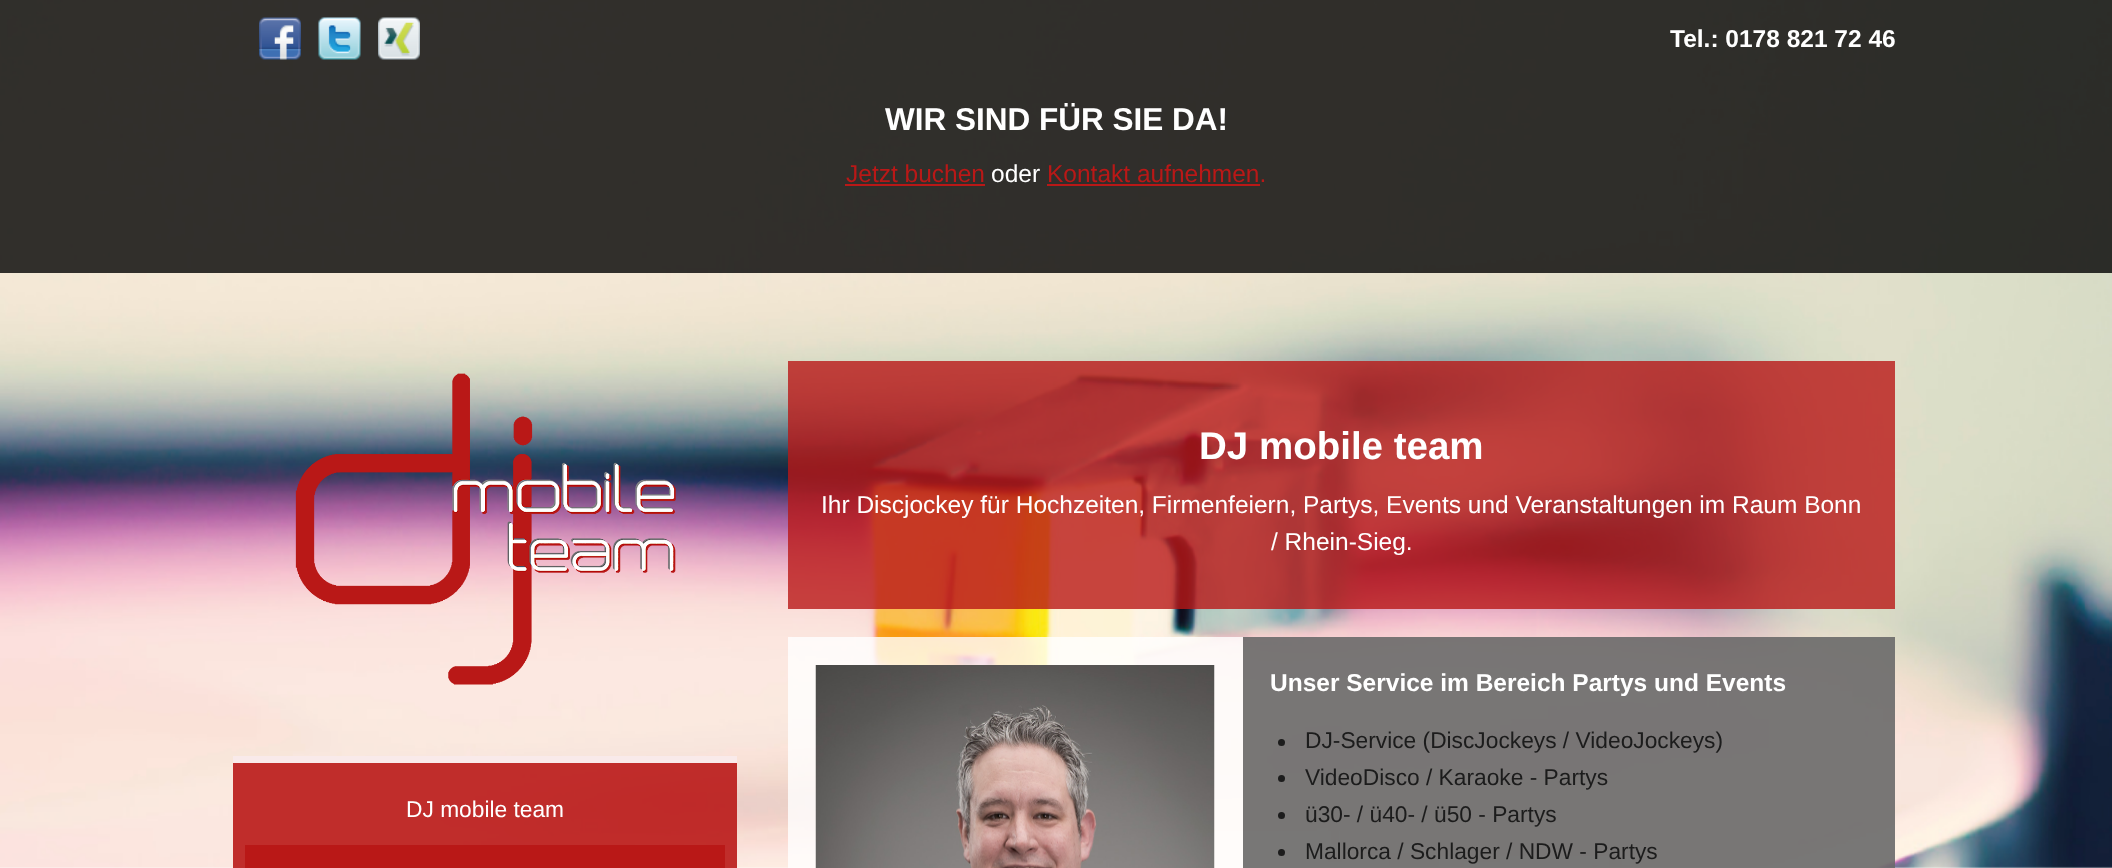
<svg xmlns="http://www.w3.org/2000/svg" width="2112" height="868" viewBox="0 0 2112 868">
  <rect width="100%" height="100%" fill="rgb(255,255,255)"/>
  <image x="0" y="0" width="2112" height="868" href="pic1.png"/>
  <rect x="0" y="0" width="2112" height="273" fill="rgba(0,0,0,0.8)"/>
  <image x="259" y="17" width="42" height="43" href="pic2.png"/>
  <image x="318" y="17" width="43" height="43" href="pic3.png"/>
  <image x="378" y="17" width="42" height="43" href="pic4.png"/>
  <text x="1670" y="47" font-family="Liberation Sans" font-size="24.5" font-weight="bold" fill="rgb(255,255,255)">Tel.: 0178 821 72 46</text>
  <text x="885" y="130" font-family="Liberation Sans" font-size="31.5" font-weight="bold" fill="rgb(255,255,255)">WIR SIND FÜR SIE DA!</text>
  <text x="846" y="182" font-family="Liberation Sans" font-size="24.5" fill="rgb(185,24,23)">Jetzt buchen</text>
  <rect x="845" y="184" width="140" height="2" fill="rgb(185,24,23)"/>
  <text x="991" y="182" font-family="Liberation Sans" font-size="24.5" fill="rgb(255,255,255)">oder</text>
  <text x="1047" y="182" font-family="Liberation Sans" font-size="24.5" fill="rgb(185,24,23)">Kontakt aufnehmen.</text>
  <rect x="1047" y="184" width="213" height="2" fill="rgb(185,24,23)"/>
  <image x="295" y="373" width="381" height="312" href="pic5.png"/>
  <rect x="233" y="763" width="504" height="105" fill="rgba(185,24,23,0.9)"/>
  <rect x="233" y="756" width="504" height="7" fill="rgb(249,234,234)"/>
  <text x="406" y="817" font-family="Liberation Sans" font-size="22.75" fill="rgb(255,255,255)">DJ mobile team</text>
  <rect x="245" y="845" width="480" height="23" fill="rgb(185,24,23)"/>
  <rect x="788" y="361" width="1107" height="248" fill="rgba(185,24,23,0.8)"/>
  <text x="1199" y="459" font-family="Liberation Sans" font-size="38.5" font-weight="bold" fill="rgb(255,255,255)">DJ mobile team</text>
  <g font-family="Liberation Sans" font-size="24.5" fill="rgb(255,255,255)">
    <text x="821" y="513">Ihr Discjockey für Hochzeiten, Firmenfeiern, Partys, Events und Veranstaltungen im Raum Bonn</text>
    <text x="1271" y="550">/ Rhein-Sieg.</text>
  </g>
  <rect x="788" y="637" width="455" height="231" fill="rgba(255,255,255,0.8)"/>
  <image x="815" y="665" width="400" height="203" href="pic6.png"/>
  <rect x="1243" y="637" width="652" height="231" fill="rgba(105,105,105,0.9)"/>
  <text x="1270" y="691" font-family="Liberation Sans" font-size="24.5" font-weight="bold" fill="rgb(255,255,255)">Unser Service im Bereich Partys und Events</text>
  <circle cx="1281.5" cy="742.5" r="3.5" fill="rgb(28,28,28)"/>
  <text x="1305" y="748" font-family="Liberation Sans" font-size="22.75" fill="rgb(28,28,28)">DJ-Service (DiscJockeys / VideoJockeys)</text>
  <circle cx="1281.5" cy="778.5" r="3.5" fill="rgb(28,28,28)"/>
  <text x="1305" y="785" font-family="Liberation Sans" font-size="22.75" fill="rgb(28,28,28)">VideoDisco / Karaoke - Partys</text>
  <circle cx="1281.5" cy="815.5" r="3.5" fill="rgb(28,28,28)"/>
  <text x="1305" y="822" font-family="Liberation Sans" font-size="22.75" fill="rgb(28,28,28)">ü30- / ü40- / ü50 - Partys</text>
  <circle cx="1281.5" cy="852.5" r="3.5" fill="rgb(28,28,28)"/>
  <text x="1305" y="859" font-family="Liberation Sans" font-size="22.75" fill="rgb(28,28,28)">Mallorca / Schlager / NDW - Partys</text>
</svg>
